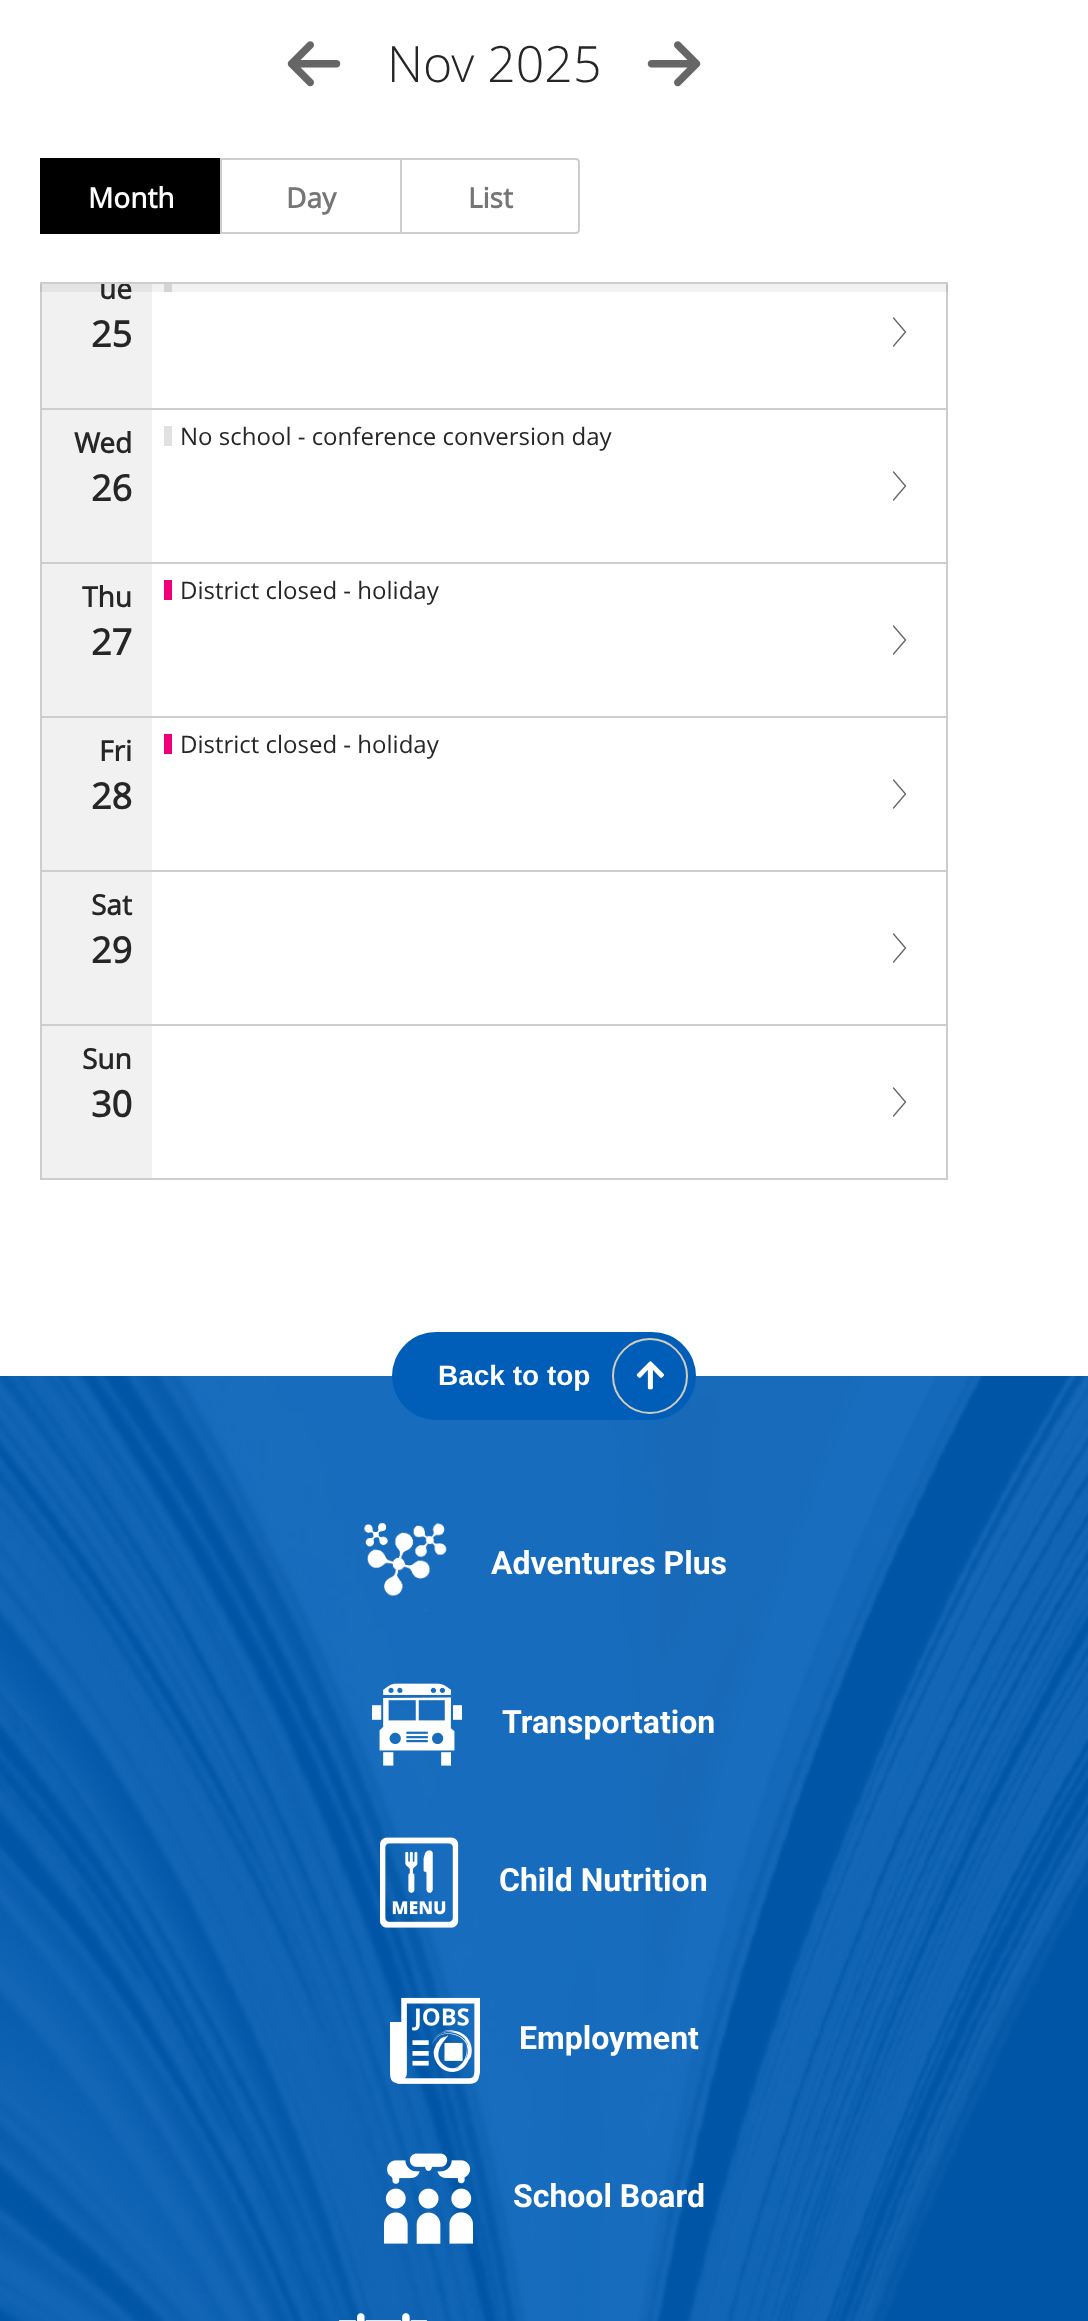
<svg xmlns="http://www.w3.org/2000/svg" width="1088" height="2321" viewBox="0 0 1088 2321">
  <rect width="100%" height="100%" fill="rgb(255,255,255)"/>
  <image x="0" y="1376" width="1088" height="945" href="pic1.png"/>
  <image x="287" y="41" width="54" height="46" href="pic2.png"/>
  <text x="387" y="82" font-family="Open Sans" font-size="50" font-weight="300" fill="rgb(38,38,38)">Nov 2025</text>
  <image x="647" y="41" width="54" height="46" href="pic3.png"/>
  <rect x="40" y="158" width="180" height="76" fill="rgb(0,0,0)"/>
  <text x="88" y="208" font-family="Open Sans" font-size="28" font-weight="bold" fill="rgb(255,255,255)">Month</text>
  <rect x="220" y="158" width="180" height="2" fill="rgb(205,205,205)"/>
  <rect x="220" y="232" width="180" height="2" fill="rgb(205,205,205)"/>
  <rect x="220" y="158" width="2" height="76" fill="rgb(205,205,205)"/>
  <text x="286" y="208" font-family="Open Sans" font-size="28" font-weight="bold" fill="rgb(118,118,118)">Day</text>
  <path d="M401 159H576C577.5 159 579 160.5 579 162V230C579 231.5 577.5 233 576 233H401Z" fill="none" stroke="rgb(205,205,205)" stroke-width="2"/>
  <text x="468" y="208" font-family="Open Sans" font-size="28" font-weight="bold" fill="rgb(118,118,118)">List</text>
  <rect x="40" y="1178" width="908" height="2" fill="rgb(205,205,205)"/>
  <rect x="40" y="284" width="2" height="896" fill="rgb(205,205,205)"/>
  <rect x="946" y="284" width="2" height="124" fill="rgb(205,205,205)"/>
  <rect x="42" y="284" width="110" height="124" fill="rgb(241,241,241)"/>
  <rect x="164" y="284" width="8" height="8" fill="rgb(225,225,225)"/>
  <rect x="40" y="284" width="908" height="8" fill="rgba(0,0,0,0.05)"/>
  <text x="99" y="299" font-family="Open Sans" font-size="28" font-weight="bold" fill="rgb(38,38,38)">ue</text>
  <rect x="40" y="282" width="908" height="2" fill="rgb(205,205,205)"/>
  <path d="M893.5 346L905.5 332L893.5 318" fill="none" stroke="rgb(102,102,102)" stroke-width="1.3" stroke-linecap="round" stroke-linejoin="round"/>
  <text x="91" y="347" font-family="Open Sans" font-size="36" font-weight="bold" fill="rgb(38,38,38)">25</text>
  <path d="M893.5 500L905.5 486L893.5 472" fill="none" stroke="rgb(102,102,102)" stroke-width="1.3" stroke-linecap="round" stroke-linejoin="round"/>
  <rect x="42" y="408" width="906" height="2" fill="rgb(205,205,205)"/>
  <rect x="946" y="408" width="2" height="154" fill="rgb(205,205,205)"/>
  <rect x="42" y="410" width="110" height="152" fill="rgb(241,241,241)"/>
  <text x="74" y="453" font-family="Open Sans" font-size="28" font-weight="bold" fill="rgb(38,38,38)">Wed</text>
  <rect x="164" y="426" width="8" height="20" fill="rgb(225,225,225)"/>
  <text x="180" y="445" font-family="Open Sans" font-size="24" fill="rgb(38,38,38)">No school - conference conversion day</text>
  <text x="91" y="501" font-family="Open Sans" font-size="36" font-weight="bold" fill="rgb(38,38,38)">26</text>
  <path d="M893.5 654L905.5 640L893.5 626" fill="none" stroke="rgb(102,102,102)" stroke-width="1.3" stroke-linecap="round" stroke-linejoin="round"/>
  <rect x="42" y="562" width="906" height="2" fill="rgb(205,205,205)"/>
  <rect x="946" y="562" width="2" height="154" fill="rgb(205,205,205)"/>
  <rect x="42" y="564" width="110" height="152" fill="rgb(241,241,241)"/>
  <text x="82" y="607" font-family="Open Sans" font-size="28" font-weight="bold" fill="rgb(38,38,38)">Thu</text>
  <rect x="164" y="580" width="8" height="20" fill="rgb(239,0,120)"/>
  <text x="180" y="599" font-family="Open Sans" font-size="24" fill="rgb(38,38,38)">District closed - holiday</text>
  <text x="91" y="655" font-family="Open Sans" font-size="36" font-weight="bold" fill="rgb(38,38,38)">27</text>
  <path d="M893.5 808L905.5 794L893.5 780" fill="none" stroke="rgb(102,102,102)" stroke-width="1.3" stroke-linecap="round" stroke-linejoin="round"/>
  <rect x="42" y="716" width="906" height="2" fill="rgb(205,205,205)"/>
  <rect x="946" y="716" width="2" height="154" fill="rgb(205,205,205)"/>
  <rect x="42" y="718" width="110" height="152" fill="rgb(241,241,241)"/>
  <text x="99" y="761" font-family="Open Sans" font-size="28" font-weight="bold" fill="rgb(38,38,38)">Fri</text>
  <rect x="164" y="734" width="8" height="20" fill="rgb(239,0,120)"/>
  <text x="180" y="753" font-family="Open Sans" font-size="24" fill="rgb(38,38,38)">District closed - holiday</text>
  <text x="91" y="809" font-family="Open Sans" font-size="36" font-weight="bold" fill="rgb(38,38,38)">28</text>
  <path d="M893.5 962L905.5 948L893.5 934" fill="none" stroke="rgb(102,102,102)" stroke-width="1.3" stroke-linecap="round" stroke-linejoin="round"/>
  <rect x="42" y="870" width="906" height="2" fill="rgb(205,205,205)"/>
  <rect x="946" y="870" width="2" height="154" fill="rgb(205,205,205)"/>
  <rect x="42" y="872" width="110" height="152" fill="rgb(241,241,241)"/>
  <text x="91" y="915" font-family="Open Sans" font-size="28" font-weight="bold" fill="rgb(38,38,38)">Sat</text>
  <text x="91" y="963" font-family="Open Sans" font-size="36" font-weight="bold" fill="rgb(38,38,38)">29</text>
  <path d="M893.5 1116L905.5 1102L893.5 1088" fill="none" stroke="rgb(102,102,102)" stroke-width="1.3" stroke-linecap="round" stroke-linejoin="round"/>
  <rect x="42" y="1024" width="906" height="2" fill="rgb(205,205,205)"/>
  <rect x="946" y="1024" width="2" height="154" fill="rgb(205,205,205)"/>
  <rect x="42" y="1026" width="110" height="152" fill="rgb(241,241,241)"/>
  <text x="82" y="1069" font-family="Open Sans" font-size="28" font-weight="bold" fill="rgb(38,38,38)">Sun</text>
  <text x="91" y="1117" font-family="Open Sans" font-size="36" font-weight="bold" fill="rgb(38,38,38)">30</text>
  <rect x="0" y="1376" width="1088" height="945" fill="rgba(0,94,184,0.9)"/>
  <rect x="392" y="1332" width="304" height="88" rx="44" fill="rgb(0,94,184)"/>
  <text x="438" y="1385" font-family="Liberation Sans" font-size="28" font-weight="bold" fill="rgb(255,255,255)">Back to top</text>
  <circle cx="650" cy="1376" r="37" fill="none" stroke="rgb(209,204,189)" stroke-width="2"/>
  <image x="636" y="1361" width="28" height="29" href="pic4.png"/>
  <image x="364" y="1522" width="83" height="89" href="pic5.png"/>
  <text x="491" y="1574" font-family="Roboto" font-size="32" font-weight="bold" fill="rgb(255,255,255)">Adventures Plus</text>
  <image x="372" y="1683" width="90" height="83" href="pic6.png"/>
  <text x="502" y="1733" font-family="Roboto" font-size="32" font-weight="bold" fill="rgb(255,255,255)">Transportation</text>
  <image x="380" y="1837" width="79" height="91" href="pic7.png"/>
  <text x="499" y="1891" font-family="Roboto" font-size="32" font-weight="bold" fill="rgb(255,255,255)">Child Nutrition</text>
  <image x="390" y="1997" width="90" height="87" href="pic8.png"/>
  <text x="519" y="2049" font-family="Roboto" font-size="32" font-weight="bold" fill="rgb(255,255,255)">Employment</text>
  <image x="384" y="2153" width="90" height="91" href="pic9.png"/>
  <text x="513" y="2207" font-family="Roboto" font-size="32" font-weight="bold" fill="rgb(255,255,255)">School Board</text>
  <image x="339" y="2313" width="88" height="8" href="pic10.png"/>
</svg>
